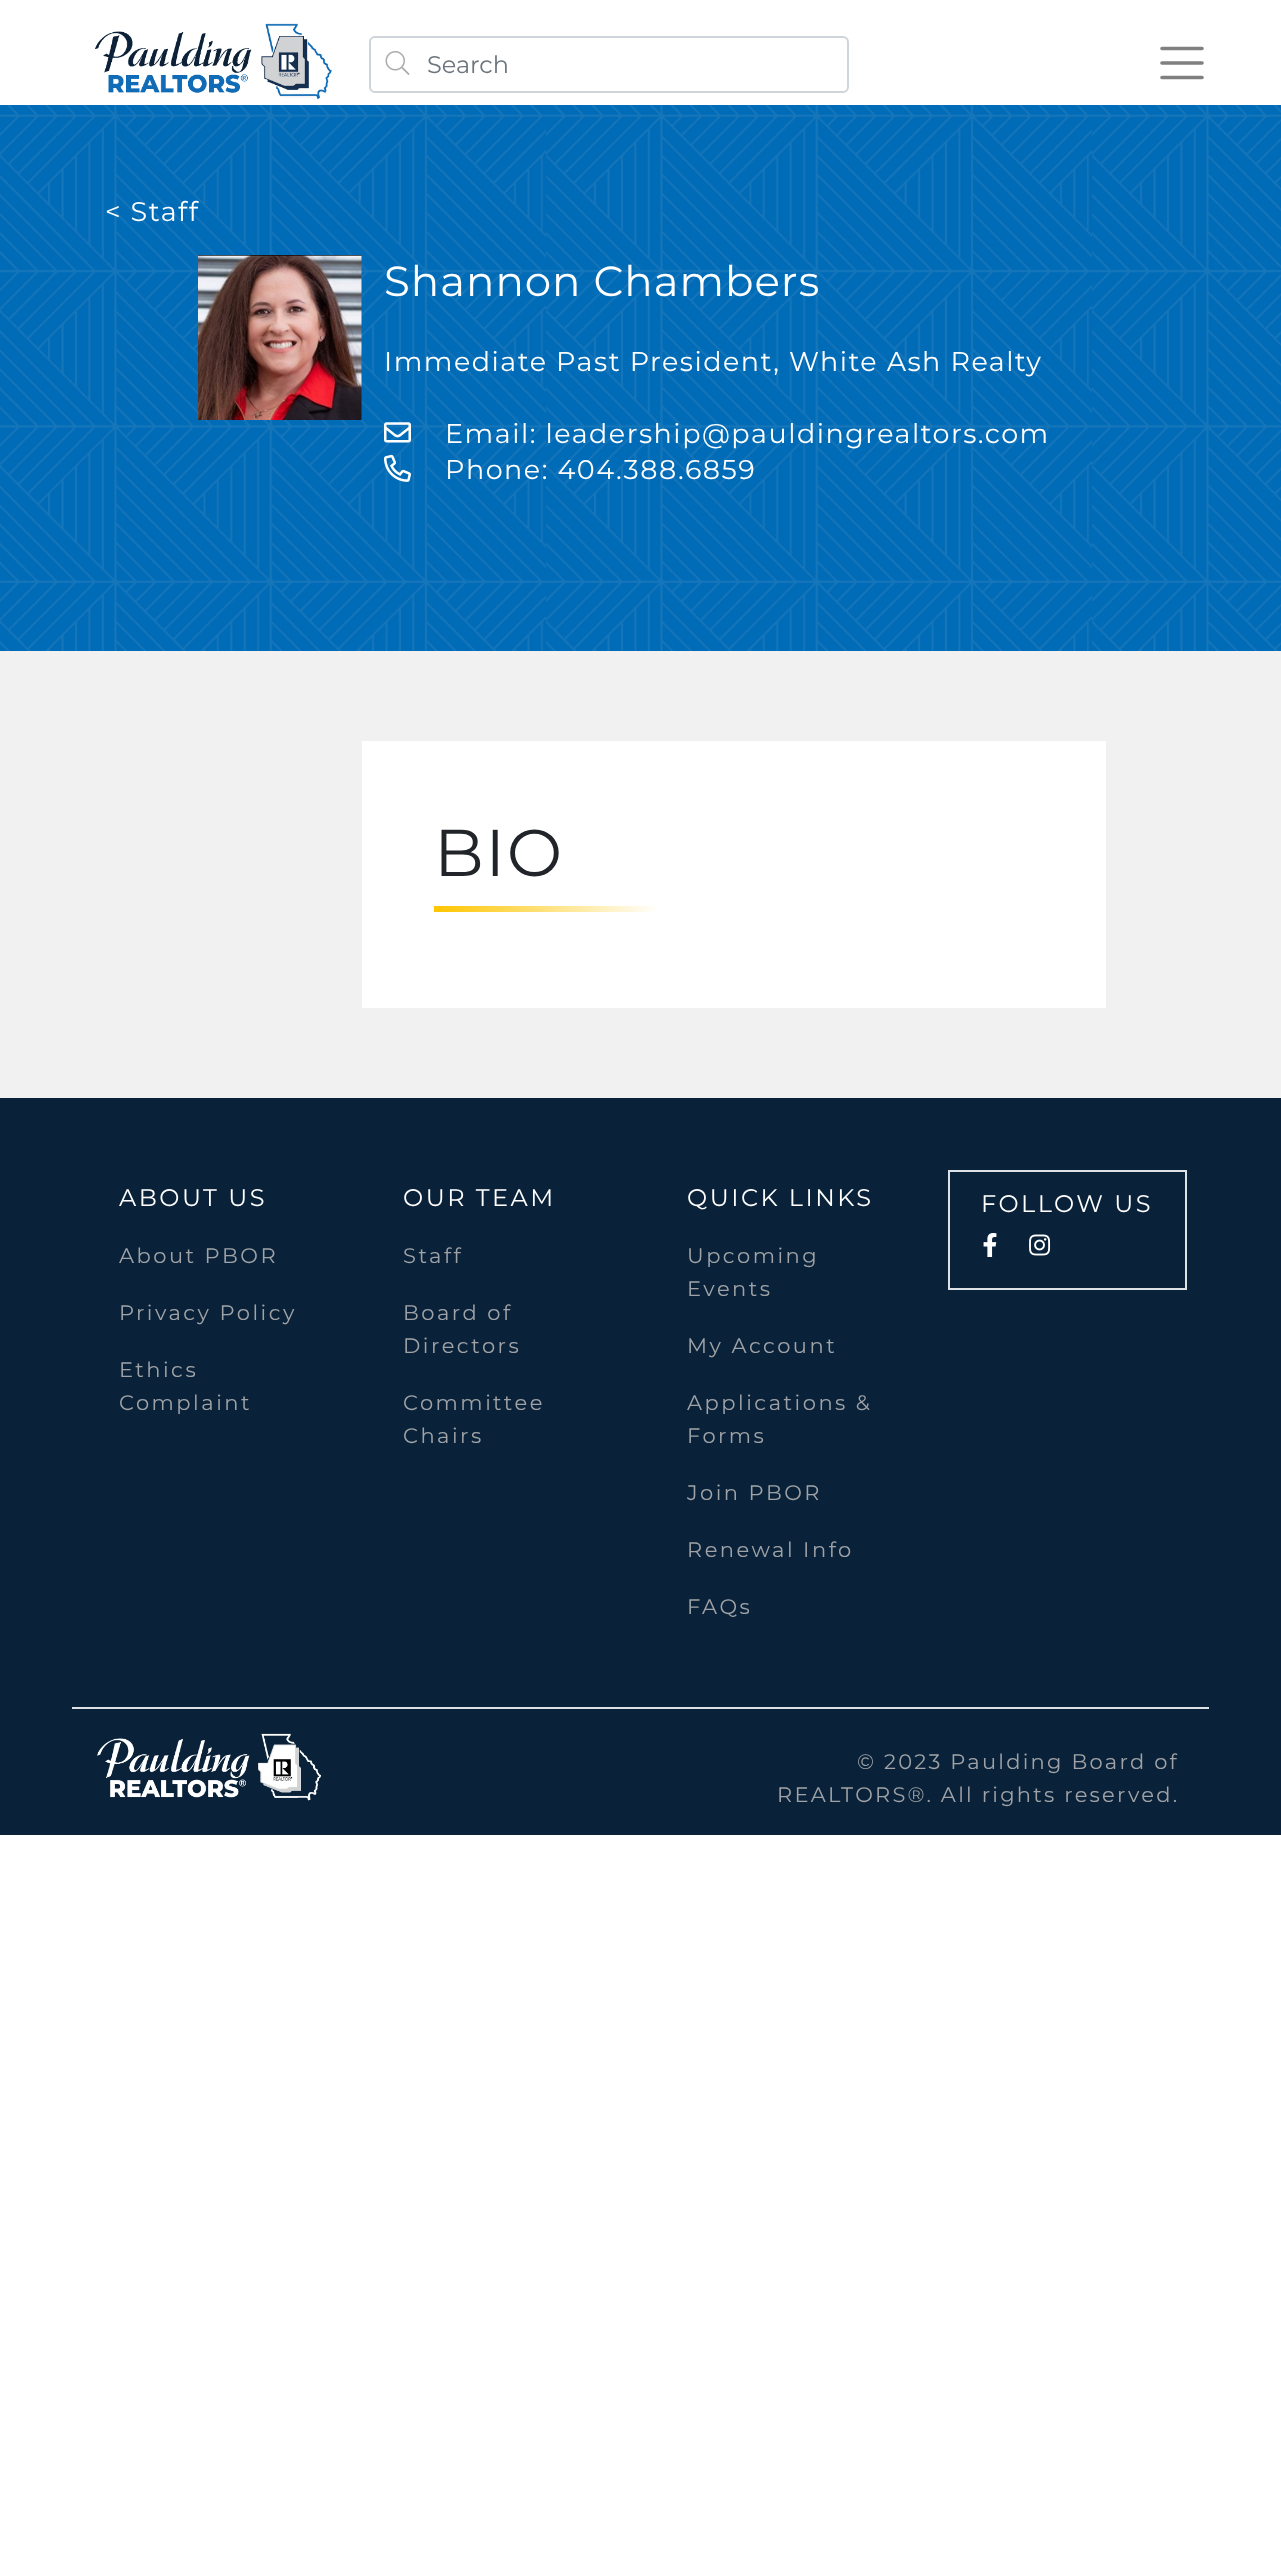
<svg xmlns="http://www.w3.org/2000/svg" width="1281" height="2552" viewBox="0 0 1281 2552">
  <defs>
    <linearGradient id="g1" gradientUnits="userSpaceOnUse" x1="659" y1="909" x2="434" y2="909"><stop offset="0" stop-color="rgb(255,255,255)"/><stop offset="1" stop-color="rgb(255,197,0)"/></linearGradient>
  </defs>
  <rect width="100%" height="100%" fill="rgb(255,255,255)"/>
  <image x="95" y="23" width="237" height="77" href="pic1.png"/>
  <rect x="370" y="37" width="478" height="55" rx="5" fill="none" stroke="rgb(206,212,218)" stroke-width="2"/>
  <image x="385" y="51" width="25" height="24" href="pic2.png"/>
  <text x="427" y="73" font-family="Montserrat" font-size="24" fill="rgb(108,117,125)">Search</text>
  <path d="M1162 48.5H1202M1162 63H1202M1162 77.5H1202" fill="none" stroke="rgb(128,128,128)" stroke-width="3.6" stroke-linecap="round"/>
  <rect x="0" y="105" width="1281" height="546" fill="rgb(0,107,183)"/>
  <image x="0" y="105" width="1281" height="546" href="pic3.png"/>
  <text x="105" y="221" font-family="Montserrat" font-size="27" letter-spacing="1.5" fill="rgb(255,255,255)">&lt; Staff</text>
  <image x="198" y="255" width="164" height="165" href="pic4.png"/>
  <text x="384" y="296" font-family="Montserrat" font-size="42" letter-spacing="1" fill="rgb(255,255,255)">Shannon Chambers</text>
  <text x="384" y="371" font-family="Montserrat" font-size="27" letter-spacing="1.5" fill="rgb(255,255,255)">Immediate Past President, White Ash Realty</text>
  <image x="384" y="422" width="27" height="21" href="pic5.png"/>
  <text x="445" y="443" font-family="Montserrat" font-size="27" letter-spacing="1.5" fill="rgb(255,255,255)">Email: leadership@pauldingrealtors.com</text>
  <image x="384" y="454" width="27" height="28" href="pic6.png"/>
  <text x="445" y="479" font-family="Montserrat" font-size="27" letter-spacing="1.5" fill="rgb(255,255,255)">Phone: 404.388.6859</text>
  <rect x="0" y="651" width="1281" height="447" fill="rgb(241,241,241)"/>
  <rect x="362" y="741" width="744" height="267" fill="rgb(255,255,255)"/>
  <text x="434" y="876" font-family="Montserrat" font-size="66" letter-spacing="1.5" fill="rgb(33,37,41)">BIO</text>
  <rect x="434" y="906" width="225" height="6" fill="url(#g1)"/>
  <rect x="0" y="1098" width="1281" height="737" fill="rgb(10,34,57)"/>
  <text x="119" y="1206" font-family="Montserrat" font-size="24" letter-spacing="2.5" fill="rgb(255,255,255)">ABOUT US</text>
  <g font-family="Montserrat" font-size="21" letter-spacing="2.5" fill="rgb(159,163,167)">
    <text x="119" y="1263">About PBOR</text>
    <text x="119" y="1320">Privacy Policy</text>
    <text>
      <tspan x="119" y="1377">Ethics</tspan>
      <tspan x="119" y="1410">Complaint</tspan>
    </text>
  </g>
  <text x="403" y="1206" font-family="Montserrat" font-size="24" letter-spacing="2.5" fill="rgb(255,255,255)">OUR TEAM</text>
  <g font-family="Montserrat" font-size="21" letter-spacing="2.5" fill="rgb(159,163,167)">
    <text x="403" y="1263">Staff</text>
    <text>
      <tspan x="403" y="1320">Board of</tspan>
      <tspan x="403" y="1353">Directors</tspan>
    </text>
    <text>
      <tspan x="403" y="1410">Committee</tspan>
      <tspan x="403" y="1443">Chairs</tspan>
    </text>
  </g>
  <text x="687" y="1206" font-family="Montserrat" font-size="24" letter-spacing="2.5" fill="rgb(255,255,255)">QUICK LINKS</text>
  <g font-family="Montserrat" font-size="21" letter-spacing="2.5" fill="rgb(159,163,167)">
    <text>
      <tspan x="687" y="1263">Upcoming</tspan>
      <tspan x="687" y="1296">Events</tspan>
    </text>
    <text x="687" y="1353">My Account</text>
    <text>
      <tspan x="687" y="1410">Applications &amp;</tspan>
      <tspan x="687" y="1443">Forms</tspan>
    </text>
    <text x="687" y="1500">Join PBOR</text>
    <text x="687" y="1557">Renewal Info</text>
    <text x="687" y="1614">FAQs</text>
  </g>
  <rect x="949" y="1171" width="237" height="118" fill="none" stroke="rgb(222,226,230)" stroke-width="2"/>
  <text x="981" y="1212" font-family="Montserrat" font-size="24" letter-spacing="2.5" fill="rgb(255,255,255)">FOLLOW US</text>
  <image x="983" y="1233" width="14" height="24" href="pic7.png"/>
  <image x="1029" y="1234" width="22" height="22" href="pic8.png"/>
  <rect x="72" y="1707" width="1137" height="2" fill="rgb(222,226,230)"/>
  <image x="97" y="1733" width="224" height="68" href="pic9.png"/>
  <g font-family="Montserrat" font-size="21" letter-spacing="2.25" fill="rgb(159,163,167)">
    <text x="857" y="1769">© 2023 Paulding Board of</text>
    <text x="777" y="1802">REALTORS®. All rights reserved.</text>
  </g>
</svg>
